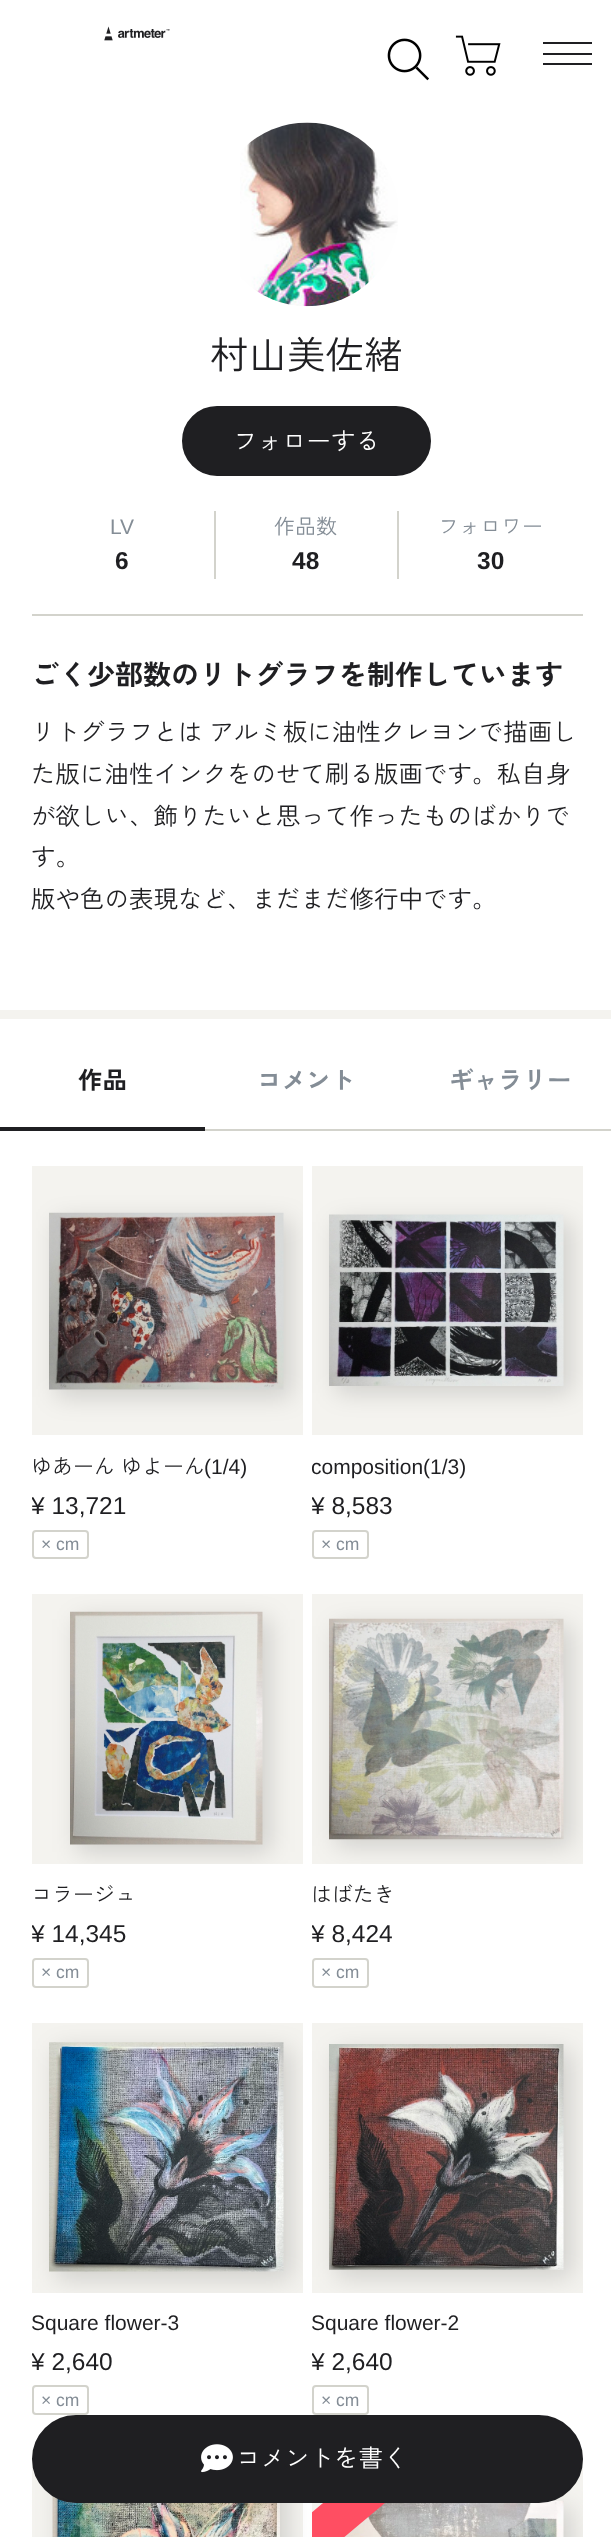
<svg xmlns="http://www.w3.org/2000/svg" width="611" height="2537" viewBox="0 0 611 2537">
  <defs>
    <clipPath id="clip1"><rect x="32" y="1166" width="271" height="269"/></clipPath>
    <clipPath id="clip2"><rect x="32" y="1166" width="271" height="395"/></clipPath>
    <clipPath id="clip3"><rect x="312" y="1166" width="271" height="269"/></clipPath>
    <clipPath id="clip4"><rect x="312" y="1166" width="271" height="395"/></clipPath>
    <clipPath id="clip5"><rect x="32" y="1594" width="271" height="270"/></clipPath>
    <clipPath id="clip6"><rect x="32" y="1594" width="271" height="396"/></clipPath>
    <clipPath id="clip7"><rect x="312" y="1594" width="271" height="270"/></clipPath>
    <clipPath id="clip8"><rect x="312" y="1594" width="271" height="396"/></clipPath>
    <clipPath id="clip9"><rect x="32" y="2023" width="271" height="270"/></clipPath>
    <clipPath id="clip10"><rect x="32" y="2023" width="271" height="394"/></clipPath>
    <clipPath id="clip11"><rect x="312" y="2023" width="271" height="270"/></clipPath>
    <clipPath id="clip12"><rect x="312" y="2023" width="271" height="394"/></clipPath>
    <clipPath id="clip13"><rect x="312" y="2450" width="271" height="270"/></clipPath>
    <clipPath id="clip14"><rect x="312" y="2450" width="271" height="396"/></clipPath>
  </defs>
  <rect width="100%" height="100%" fill="rgb(255,255,255)"/>
  <image x="104" y="26" width="66" height="15" href="pic1.png"/>
  <image x="387" y="38" width="42" height="43" href="pic2.png"/>
  <image x="455" y="35" width="46" height="41" href="pic3.png"/>
  <rect x="543" y="42" width="49" height="2" fill="rgb(31,31,34)"/>
  <rect x="543" y="53" width="49" height="2" fill="rgb(31,31,34)"/>
  <rect x="543" y="63" width="49" height="2" fill="rgb(31,31,34)"/>
  <image x="240" y="122" width="158" height="185" href="pic4.png"/>
  <text x="210" y="369" font-family="Zen Kaku Gothic New" font-size="38.5" fill="rgb(31,31,34)">村山美佐緒</text>
  <rect x="183" y="407" width="247" height="68" rx="34" fill="rgb(31,31,34)" stroke="rgb(31,31,34)" stroke-width="2"/>
  <text x="233" y="450" font-family="Zen Kaku Gothic New" font-size="24.5" fill="rgb(255,255,255)">フォローする</text>
  <rect x="214" y="511" width="2" height="68" fill="rgb(211,211,204)"/>
  <text x="110" y="534" font-family="Liberation Sans" font-size="21" fill="rgb(132,141,150)">LV</text>
  <text x="115" y="569" font-family="Liberation Sans" font-size="24.5" font-weight="bold" fill="rgb(31,31,34)">6</text>
  <rect x="397" y="511" width="2" height="68" fill="rgb(211,211,204)"/>
  <text x="274" y="534" font-family="Zen Kaku Gothic New" font-size="21" fill="rgb(132,141,150)">作品数</text>
  <text x="292" y="569" font-family="Liberation Sans" font-size="24.5" font-weight="bold" fill="rgb(31,31,34)">48</text>
  <text x="438" y="534" font-family="Zen Kaku Gothic New" font-size="21" fill="rgb(132,141,150)">フォロワー</text>
  <text x="477" y="569" font-family="Liberation Sans" font-size="24.5" font-weight="bold" fill="rgb(31,31,34)">30</text>
  <rect x="32" y="614" width="551" height="2" fill="rgb(211,211,204)"/>
  <text x="31" y="685" font-family="Zen Kaku Gothic New" font-size="28" font-weight="bold" fill="rgb(31,31,34)">ごく少部数のリトグラフを制作しています</text>
  <g font-family="Zen Kaku Gothic New" font-size="24.5" fill="rgb(31,31,34)">
    <text>
      <tspan x="31" y="741">リトグラフとは アルミ板に油性クレヨンで描画し</tspan>
      <tspan x="31" y="783">た版に油性インクをのせて刷る版画です。私自身</tspan>
      <tspan x="31" y="825">が欲しい、飾りたいと思って作ったものばかりで</tspan>
      <tspan x="31" y="866">す。</tspan>
      <tspan x="31" y="908">版や色の表現など、まだまだ修行中です。</tspan>
    </text>
  </g>
  <rect x="0" y="1010" width="611" height="9" fill="rgb(244,243,239)"/>
  <rect x="205" y="1129" width="406" height="2" fill="rgb(211,211,204)"/>
  <rect x="0" y="1127" width="205" height="4" fill="rgb(31,31,34)"/>
  <text x="78" y="1089" font-family="Zen Kaku Gothic New" font-size="24.5" font-weight="bold" fill="rgb(31,31,34)">作品</text>
  <g font-family="Zen Kaku Gothic New" font-size="24.5" font-weight="bold" fill="rgb(132,141,150)">
    <text x="257" y="1089">コメント</text>
    <text x="449" y="1089">ギャラリー</text>
  </g>
  <rect x="32" y="1166" width="271" height="269" fill="rgb(244,243,239)"/>
  <g clip-path="url(#clip1)">
    <rect x="56" y="1220" width="235" height="177" fill="rgba(0,0,0,0.15)" filter="blur(12px)"/>
  </g>
  <image x="49" y="1212" width="235" height="178" href="pic5.png"/>
  <text x="31" y="1474" font-family="Zen Kaku Gothic New" font-size="21" fill="rgb(31,31,34)">ゆあーん ゆよーん</text>
  <text x="204" y="1474" font-family="Liberation Sans" font-size="21" fill="rgb(31,31,34)">(1/4)</text>
  <g clip-path="url(#clip2)">
    <text x="31" y="1514" font-family="Liberation Sans" font-size="24.5" fill="rgb(31,31,34)">¥ 13,721</text>
  </g>
  <rect x="33" y="1531" width="55" height="27" rx="3" fill="none" stroke="rgb(211,211,204)" stroke-width="2"/>
  <text x="41" y="1550" font-family="Liberation Sans" font-size="17.5" fill="rgb(132,141,150)">× cm</text>
  <rect x="312" y="1166" width="271" height="269" fill="rgb(244,243,239)"/>
  <g clip-path="url(#clip3)">
    <rect x="336" y="1222" width="235" height="171" fill="rgba(0,0,0,0.15)" filter="blur(12px)"/>
  </g>
  <image x="329" y="1214" width="235" height="172" href="pic6.png"/>
  <g clip-path="url(#clip4)">
    <text x="311" y="1474" font-family="Liberation Sans" font-size="21" fill="rgb(31,31,34)">composition(1/3)</text>
    <text x="311" y="1514" font-family="Liberation Sans" font-size="24.5" fill="rgb(31,31,34)">¥ 8,583</text>
  </g>
  <rect x="313" y="1531" width="55" height="27" rx="3" fill="none" stroke="rgb(211,211,204)" stroke-width="2"/>
  <text x="321" y="1550" font-family="Liberation Sans" font-size="17.5" fill="rgb(132,141,150)">× cm</text>
  <rect x="32" y="1594" width="271" height="270" fill="rgb(244,243,239)"/>
  <g clip-path="url(#clip5)">
    <rect x="77" y="1619" width="193" height="233" fill="rgba(0,0,0,0.15)" filter="blur(12px)"/>
  </g>
  <image x="70" y="1611" width="193" height="234" href="pic7.png"/>
  <text x="31" y="1902" font-family="Zen Kaku Gothic New" font-size="21" fill="rgb(31,31,34)">コラージュ</text>
  <g clip-path="url(#clip6)">
    <text x="31" y="1942" font-family="Liberation Sans" font-size="24.5" fill="rgb(31,31,34)">¥ 14,345</text>
  </g>
  <rect x="33" y="1959" width="55" height="28" rx="3" fill="none" stroke="rgb(211,211,204)" stroke-width="2"/>
  <text x="41" y="1978" font-family="Liberation Sans" font-size="17.5" fill="rgb(132,141,150)">× cm</text>
  <rect x="312" y="1594" width="271" height="270" fill="rgb(244,243,239)"/>
  <g clip-path="url(#clip7)">
    <rect x="336" y="1626" width="235" height="220" fill="rgba(0,0,0,0.15)" filter="blur(12px)"/>
  </g>
  <image x="329" y="1618" width="235" height="222" href="pic8.png"/>
  <text x="311" y="1902" font-family="Zen Kaku Gothic New" font-size="21" fill="rgb(31,31,34)">はばたき</text>
  <g clip-path="url(#clip8)">
    <text x="311" y="1942" font-family="Liberation Sans" font-size="24.5" fill="rgb(31,31,34)">¥ 8,424</text>
  </g>
  <rect x="313" y="1959" width="55" height="28" rx="3" fill="none" stroke="rgb(211,211,204)" stroke-width="2"/>
  <text x="321" y="1978" font-family="Liberation Sans" font-size="17.5" fill="rgb(132,141,150)">× cm</text>
  <rect x="32" y="2023" width="271" height="270" fill="rgb(244,243,239)"/>
  <g clip-path="url(#clip9)">
    <rect x="56" y="2049" width="235" height="230" fill="rgba(0,0,0,0.15)" filter="blur(12px)"/>
  </g>
  <image x="49" y="2042" width="235" height="230" href="pic9.png"/>
  <text x="31" y="2330" font-family="Liberation Sans" font-size="21" fill="rgb(31,31,34)">Square flower-3</text>
  <g clip-path="url(#clip10)">
    <text x="31" y="2370" font-family="Liberation Sans" font-size="24.5" fill="rgb(31,31,34)">¥ 2,640</text>
  </g>
  <rect x="33" y="2386" width="55" height="28" rx="3" fill="none" stroke="rgb(211,211,204)" stroke-width="2"/>
  <text x="41" y="2406" font-family="Liberation Sans" font-size="17.5" fill="rgb(132,141,150)">× cm</text>
  <rect x="312" y="2023" width="271" height="270" fill="rgb(244,243,239)"/>
  <g clip-path="url(#clip11)">
    <rect x="336" y="2051" width="235" height="226" fill="rgba(0,0,0,0.15)" filter="blur(12px)"/>
  </g>
  <image x="329" y="2044" width="235" height="226" href="pic10.png"/>
  <text x="311" y="2330" font-family="Liberation Sans" font-size="21" fill="rgb(31,31,34)">Square flower-2</text>
  <g clip-path="url(#clip12)">
    <text x="311" y="2370" font-family="Liberation Sans" font-size="24.5" fill="rgb(31,31,34)">¥ 2,640</text>
  </g>
  <rect x="313" y="2386" width="55" height="28" rx="3" fill="none" stroke="rgb(211,211,204)" stroke-width="2"/>
  <text x="321" y="2406" font-family="Liberation Sans" font-size="17.5" fill="rgb(132,141,150)">× cm</text>
  <rect x="32" y="2450" width="271" height="87" fill="rgb(244,243,239)"/>
  <rect x="60" y="2476" width="227" height="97" fill="rgba(0,0,0,0.15)" filter="blur(12px)"/>
  <image x="52" y="2495" width="228" height="42" href="pic11.png"/>
  <rect x="312" y="2450" width="271" height="87" fill="rgb(244,243,239)"/>
  <g clip-path="url(#clip13)">
    <rect x="336" y="2508" width="235" height="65" fill="rgba(0,0,0,0.15)" filter="blur(12px)"/>
  </g>
  <image x="344" y="2500" width="220" height="37" href="pic12.png"/>
  <g clip-path="url(#clip14)">
    <path d="M230 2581L471 2379L497 2409L255 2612Z" fill="rgb(255,78,98)"/>
  </g>
  <rect x="33" y="2416" width="549" height="86" rx="43" fill="rgb(31,31,34)" stroke="rgb(31,31,34)" stroke-width="2"/>
  <image x="201" y="2444" width="32" height="29" href="pic13.png"/>
  <text x="236" y="2467" font-family="Zen Kaku Gothic New" font-size="24.5" fill="rgb(255,255,255)">コメントを書く</text>
</svg>
